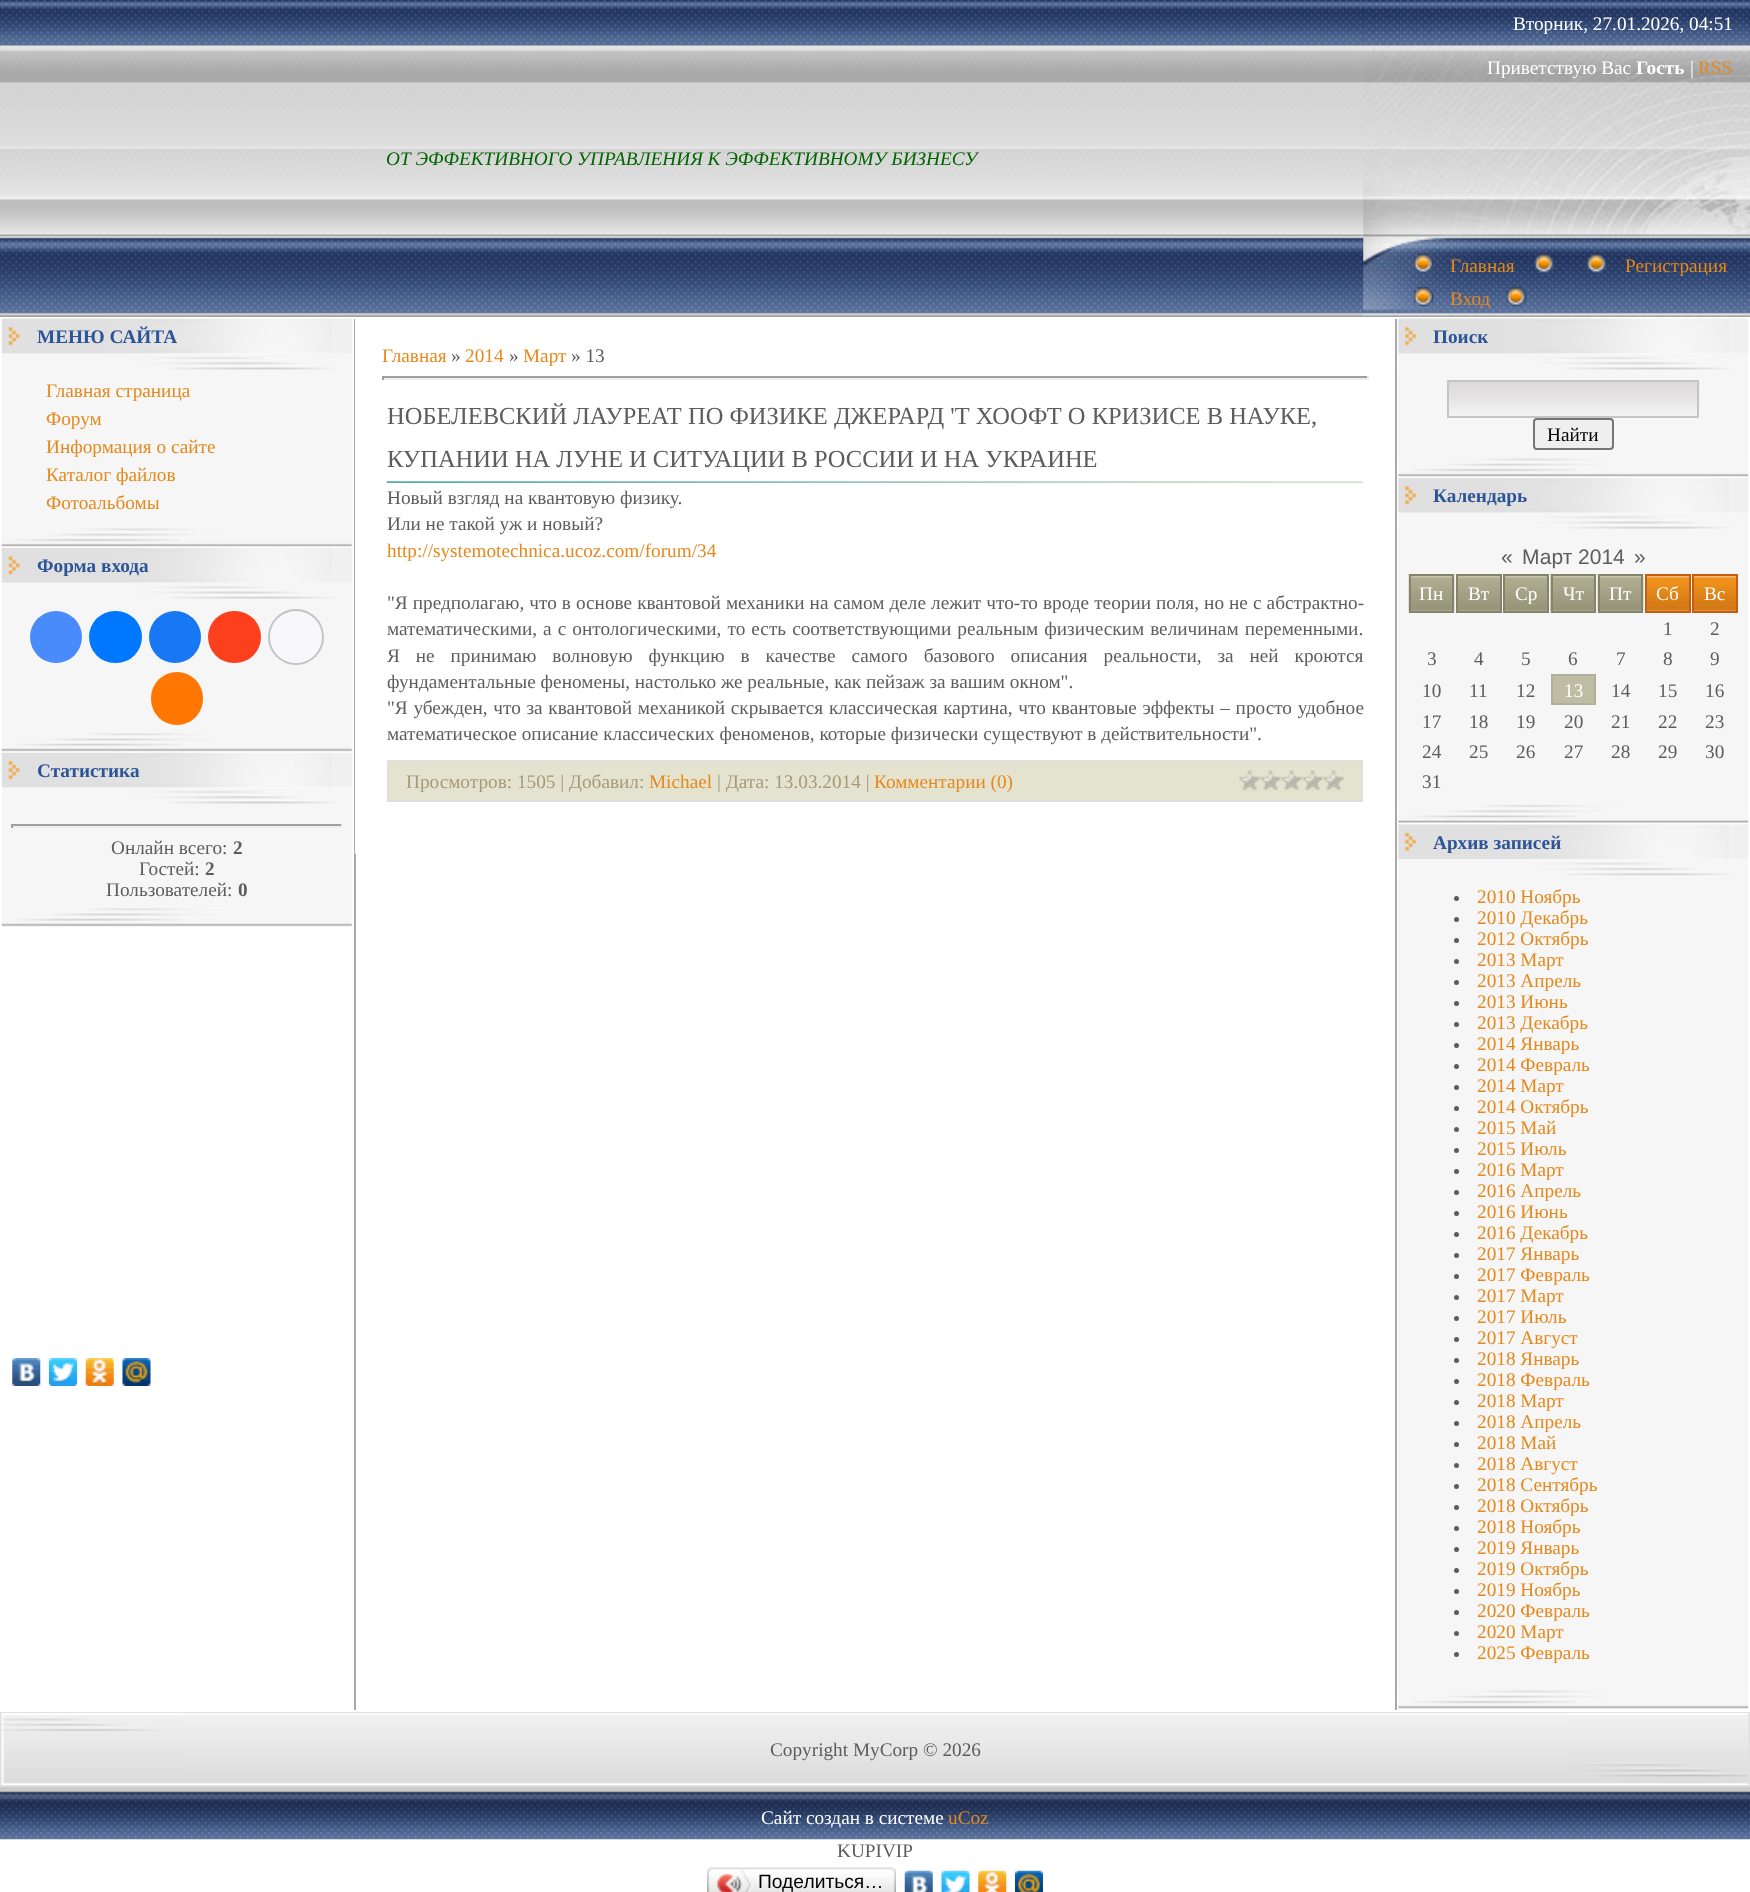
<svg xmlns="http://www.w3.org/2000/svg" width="1750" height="1892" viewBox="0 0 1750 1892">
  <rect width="100%" height="100%" fill="rgb(255,255,255)"/>
  <rect x="0" y="316" width="1750" height="1" fill="rgb(161,161,161)"/>
  <image x="0" y="0" width="1364" height="316" href="pic1.png"/>
  <text x="386" y="165" font-family="Liberation Serif" font-size="19.25" font-style="italic" fill="rgb(0,100,0)">ОТ ЭФФЕКТИВНОГО УПРАВЛЕНИЯ К ЭФФЕКТИВНОМУ БИЗНЕСУ</text>
  <image x="1363" y="0" width="387" height="317" href="pic2.png"/>
  <g font-family="Liberation Serif" font-size="19.25" fill="rgb(255,255,255)">
    <text x="1513" y="30">Вторник, 27.01.2026, 04:51</text>
    <text x="1487" y="74">Приветствую Вас</text>
  </g>
  <text x="1636" y="74" font-family="Liberation Serif" font-size="19.25" font-weight="bold" fill="rgb(255,255,255)">Гость</text>
  <text x="1690" y="74" font-family="Liberation Serif" font-size="19.25" fill="rgb(255,255,255)">|</text>
  <text x="1698" y="74" font-family="Liberation Serif" font-size="19.25" fill="rgb(229,137,28)">RSS</text>
  <image x="1413" y="253" width="21" height="20" href="pic3.png"/>
  <text x="1450" y="272" font-family="Liberation Serif" font-size="19.25" fill="rgb(229,137,28)">Главная</text>
  <image x="1534" y="253" width="21" height="20" href="pic4.png"/>
  <image x="1587" y="253" width="20" height="20" href="pic5.png"/>
  <text x="1625" y="272" font-family="Liberation Serif" font-size="19.25" fill="rgb(229,137,28)">Регистрация</text>
  <image x="1413" y="286" width="21" height="21" href="pic6.png"/>
  <text x="1450" y="305" font-family="Liberation Serif" font-size="19.25" fill="rgb(229,137,28)">Вход</text>
  <image x="1506" y="286" width="21" height="21" href="pic7.png"/>
  <image x="1" y="318" width="351" height="36" href="pic8.png"/>
  <text x="37" y="343" font-family="Liberation Serif" font-size="19.25" font-weight="bold" fill="rgb(44,84,151)">МЕНЮ САЙТА</text>
  <image x="2" y="354" width="350" height="17" href="pic9.png"/>
  <rect x="2" y="371" width="350" height="158" fill="rgb(246,246,246)"/>
  <g font-family="Liberation Serif" font-size="19.25" fill="rgb(229,137,28)">
    <text>
      <tspan x="46" y="397">Главная страница</tspan>
      <tspan x="46" y="425">Форум</tspan>
      <tspan x="46" y="453">Информация о сайте</tspan>
      <tspan x="46" y="481">Каталог файлов</tspan>
      <tspan x="46" y="509">Фотоальбомы</tspan>
    </text>
  </g>
  <image x="1" y="547" width="351" height="36" href="pic11.png"/>
  <image x="1" y="528" width="351" height="20" href="pic10.png"/>
  <text x="37" y="572" font-family="Liberation Serif" font-size="19.25" font-weight="bold" fill="rgb(44,84,151)">Форма входа</text>
  <image x="2" y="582" width="350" height="18" href="pic12.png"/>
  <rect x="2" y="600" width="350" height="133" fill="rgb(246,246,246)"/>
  <circle cx="56" cy="637" r="26" fill="rgb(73,139,250)"/>
  <rect x="89" y="611" width="53" height="52" rx="26" fill="rgb(0,119,255)"/>
  <circle cx="175" cy="637" r="26" fill="rgb(24,119,242)"/>
  <rect x="208" y="611" width="53" height="52" rx="26" fill="rgb(252,63,29)"/>
  <circle cx="296" cy="637" r="27" fill="rgb(248,248,252)" stroke="rgb(196,196,196)" stroke-width="2"/>
  <rect x="151" y="672" width="52" height="53" rx="26" fill="rgb(255,119,0)"/>
  <image x="1" y="752" width="351" height="36" href="pic8.png"/>
  <image x="1" y="733" width="351" height="20" href="pic13.png"/>
  <text x="37" y="777" font-family="Liberation Serif" font-size="19.25" font-weight="bold" fill="rgb(44,84,151)">Статистика</text>
  <image x="2" y="788" width="350" height="17" href="pic9.png"/>
  <rect x="2" y="805" width="350" height="103" fill="rgb(246,246,246)"/>
  <rect x="11" y="824" width="332" height="2" fill="rgb(159,159,159)"/>
  <rect x="341" y="824" width="2" height="4" fill="rgb(238,238,238)"/>
  <rect x="11" y="826" width="332" height="2" fill="rgb(238,238,238)"/>
  <rect x="11" y="824" width="2" height="4" fill="rgb(159,159,159)"/>
  <text x="111" y="854" font-family="Liberation Serif" font-size="19.25" fill="rgb(93,93,93)">Онлайн всего:</text>
  <text x="233" y="854" font-family="Liberation Serif" font-size="19.25" font-weight="bold" fill="rgb(93,93,93)">2</text>
  <text x="139" y="875" font-family="Liberation Serif" font-size="19.25" fill="rgb(93,93,93)">Гостей:</text>
  <text x="205" y="875" font-family="Liberation Serif" font-size="19.25" font-weight="bold" fill="rgb(93,93,93)">2</text>
  <text x="106" y="896" font-family="Liberation Serif" font-size="19.25" fill="rgb(93,93,93)">Пользователей:</text>
  <text x="238" y="896" font-family="Liberation Serif" font-size="19.25" font-weight="bold" fill="rgb(93,93,93)">0</text>
  <image x="1" y="908" width="351" height="19" href="pic14.png"/>
  <image x="12" y="1358" width="29" height="28" href="pic15.png"/>
  <image x="49" y="1358" width="28" height="28" href="pic16.png"/>
  <image x="85" y="1358" width="29" height="28" href="pic17.png"/>
  <image x="122" y="1358" width="29" height="28" href="pic18.png"/>
  <rect x="1395" y="319" width="2" height="1391" fill="rgb(169,169,169)"/>
  <rect x="354" y="319" width="2" height="1391" fill="rgb(169,169,169)"/>
  <rect x="355" y="319" width="1" height="535" fill="rgb(255,255,255)"/>
  <text x="382" y="362" font-family="Liberation Serif" font-size="19.25" fill="rgb(229,137,28)">Главная</text>
  <text x="451" y="362" font-family="Liberation Serif" font-size="19.25" fill="rgb(93,93,93)">»</text>
  <text x="465" y="362" font-family="Liberation Serif" font-size="19.25" fill="rgb(229,137,28)">2014</text>
  <text x="509" y="362" font-family="Liberation Serif" font-size="19.25" fill="rgb(93,93,93)">»</text>
  <text x="523" y="362" font-family="Liberation Serif" font-size="19.25" fill="rgb(229,137,28)">Март</text>
  <text x="571" y="362" font-family="Liberation Serif" font-size="19.25" fill="rgb(93,93,93)">» 13</text>
  <rect x="382" y="376" width="987" height="2" fill="rgb(159,159,159)"/>
  <rect x="1367" y="376" width="2" height="4" fill="rgb(238,238,238)"/>
  <rect x="382" y="378" width="987" height="2" fill="rgb(238,238,238)"/>
  <rect x="382" y="376" width="2" height="4" fill="rgb(159,159,159)"/>
  <g font-family="Liberation Serif" font-size="24.5" fill="rgb(93,93,93)">
    <text>
      <tspan x="387" y="424">НОБЕЛЕВСКИЙ ЛАУРЕАТ ПО ФИЗИКЕ ДЖЕРАРД 'Т ХООФТ О КРИЗИСЕ В НАУКЕ,</tspan>
      <tspan x="387" y="467">КУПАНИИ НА ЛУНЕ И СИТУАЦИИ В РОССИИ И НА УКРАИНЕ</tspan>
    </text>
  </g>
  <image x="386" y="481" width="978" height="2" href="pic19.png"/>
  <g font-family="Liberation Serif" font-size="19.25" fill="rgb(93,93,93)">
    <text>
      <tspan x="387" y="504">Новый взгляд на квантовую физику.</tspan>
      <tspan x="387" y="530">Или не такой уж и новый?</tspan>
    </text>
  </g>
  <text x="387" y="557" font-family="Liberation Serif" font-size="19.25" fill="rgb(229,137,28)">http://systemotechnica.ucoz.com/forum/34</text>
  <g font-family="Liberation Serif" font-size="19.25" fill="rgb(93,93,93)">
    <text>
      <tspan x="387" y="609" word-spacing="0.25">"Я предполагаю, что в основе квантовой механики на самом деле лежит что-то вроде теории поля, но не с абстрактно-</tspan>
      <tspan x="387" y="635" word-spacing="1.25">математическими, а с онтологическими, то есть соответствующими реальным физическим величинам переменными.</tspan>
      <tspan x="387" y="662" word-spacing="11.1">Я не принимаю волновую функцию в качестве самого базового описания реальности, за ней кроются</tspan>
      <tspan x="387" y="688">фундаментальные феномены, настолько же реальные, как пейзаж за вашим окном".</tspan>
      <tspan x="387" y="714" word-spacing="0.9">"Я убежден, что за квантовой механикой скрывается классическая картина, что квантовые эффекты – просто удобное</tspan>
      <tspan x="387" y="740">математическое описание классических феноменов, которые физически существуют в действительности".</tspan>
    </text>
  </g>
  <rect x="388" y="761" width="974" height="40" fill="rgb(228,227,207)" stroke="rgb(224,223,219)" stroke-width="2"/>
  <text x="406" y="788" font-family="Liberation Serif" font-size="19.25" fill="rgb(167,154,120)">Просмотров: 1505 | Добавил:</text>
  <text x="649" y="788" font-family="Liberation Serif" font-size="19.25" fill="rgb(229,137,28)">Michael</text>
  <text x="717" y="788" font-family="Liberation Serif" font-size="19.25" fill="rgb(167,154,120)">| Дата: 13.03.2014 |</text>
  <text x="874" y="788" font-family="Liberation Serif" font-size="19.25" fill="rgb(229,137,28)">Комментарии (0)</text>
  <image x="1239" y="770" width="105" height="21" href="pic20.png"/>
  <image x="1398" y="318" width="351" height="36" href="pic21.png"/>
  <text x="1433" y="343" font-family="Liberation Serif" font-size="19.25" font-weight="bold" fill="rgb(44,84,151)">Поиск</text>
  <image x="1398" y="354" width="350" height="17" href="pic22.png"/>
  <rect x="1398" y="371" width="350" height="88" fill="rgb(246,246,246)"/>
  <rect x="1449" y="409" width="248" height="7" fill="rgb(242,241,241)"/>
  <image x="1449" y="381" width="251" height="28" href="pic23.png"/>
  <rect x="1448" y="381" width="250" height="36" fill="none" stroke="rgb(197,197,197)" stroke-width="2"/>
  <rect x="1534" y="419" width="79" height="30" rx="3" fill="rgb(239,239,239)" stroke="rgb(118,118,118)" stroke-width="2"/>
  <text x="1547" y="441" font-family="Liberation Serif" font-size="19.25" fill="rgb(0,0,0)">Найти</text>
  <image x="1398" y="477" width="351" height="36" href="pic25.png"/>
  <image x="1398" y="458" width="351" height="20" href="pic24.png"/>
  <text x="1433" y="502" font-family="Liberation Serif" font-size="19.25" font-weight="bold" fill="rgb(44,84,151)">Календарь</text>
  <image x="1398" y="512" width="350" height="18" href="pic26.png"/>
  <rect x="1398" y="530" width="350" height="275" fill="rgb(246,246,246)"/>
  <g font-family="Liberation Sans" font-size="21" fill="rgb(93,93,93)">
    <text x="1501" y="564">«</text>
    <text x="1522" y="564">Март 2014</text>
    <text x="1634" y="564">»</text>
  </g>
  <image x="1408" y="574" width="47" height="39" href="pic27.png"/>
  <rect x="1410" y="575" width="43" height="37" fill="none" stroke="rgb(133,132,107)" stroke-width="2"/>
  <text x="1419" y="600" font-family="Liberation Serif" font-size="19.25" fill="rgb(255,255,255)">Пн</text>
  <image x="1458" y="576" width="42" height="35" href="pic28.png"/>
  <rect x="1457" y="575" width="44" height="37" fill="none" stroke="rgb(133,132,107)" stroke-width="2"/>
  <text x="1468" y="600" font-family="Liberation Serif" font-size="19.25" fill="rgb(255,255,255)">Вт</text>
  <image x="1505" y="576" width="42" height="35" href="pic29.png"/>
  <rect x="1504" y="575" width="44" height="37" fill="none" stroke="rgb(133,132,107)" stroke-width="2"/>
  <text x="1515" y="600" font-family="Liberation Serif" font-size="19.25" fill="rgb(255,255,255)">Ср</text>
  <image x="1550" y="574" width="44" height="39" href="pic30.png"/>
  <rect x="1552" y="575" width="43" height="37" fill="none" stroke="rgb(133,132,107)" stroke-width="2"/>
  <text x="1563" y="600" font-family="Liberation Serif" font-size="19.25" fill="rgb(255,255,255)">Чт</text>
  <image x="1597" y="574" width="47" height="39" href="pic31.png"/>
  <rect x="1599" y="575" width="43" height="37" fill="none" stroke="rgb(133,132,107)" stroke-width="2"/>
  <text x="1609" y="600" font-family="Liberation Serif" font-size="19.25" fill="rgb(255,255,255)">Пт</text>
  <image x="1647" y="576" width="42" height="35" href="pic32.png"/>
  <rect x="1646" y="575" width="44" height="37" fill="none" stroke="rgb(199,93,17)" stroke-width="2"/>
  <text x="1656" y="600" font-family="Liberation Serif" font-size="19.25" fill="rgb(255,255,255)">Сб</text>
  <image x="1694" y="576" width="42" height="35" href="pic32.png"/>
  <rect x="1693" y="575" width="44" height="37" fill="none" stroke="rgb(199,93,17)" stroke-width="2"/>
  <text x="1704" y="600" font-family="Liberation Serif" font-size="19.25" fill="rgb(255,255,255)">Вс</text>
  <g font-family="Liberation Serif" font-size="19.25" fill="rgb(93,93,93)">
    <text x="1663" y="635">1</text>
    <text x="1710" y="635">2</text>
    <text x="1427" y="665">3</text>
    <text x="1474" y="665">4</text>
    <text x="1521" y="665">5</text>
    <text x="1568" y="665">6</text>
    <text x="1616" y="665">7</text>
    <text x="1663" y="665">8</text>
    <text x="1710" y="665">9</text>
    <text x="1422" y="697">10</text>
    <text x="1469" y="697">11</text>
    <text x="1516" y="697">12</text>
  </g>
  <rect x="1552" y="675" width="43" height="29" fill="rgb(190,189,163)" stroke="rgb(177,176,154)" stroke-width="2"/>
  <text x="1564" y="697" font-family="Liberation Serif" font-size="19.25" fill="rgb(255,255,255)">13</text>
  <g font-family="Liberation Serif" font-size="19.25" fill="rgb(93,93,93)">
    <text x="1611" y="697">14</text>
    <text x="1658" y="697">15</text>
    <text x="1705" y="697">16</text>
    <text x="1422" y="728">17</text>
    <text x="1469" y="728">18</text>
    <text x="1516" y="728">19</text>
    <text x="1564" y="728">20</text>
    <text x="1611" y="728">21</text>
    <text x="1658" y="728">22</text>
    <text x="1705" y="728">23</text>
    <text x="1422" y="758">24</text>
    <text x="1469" y="758">25</text>
    <text x="1516" y="758">26</text>
    <text x="1564" y="758">27</text>
    <text x="1611" y="758">28</text>
    <text x="1658" y="758">29</text>
    <text x="1705" y="758">30</text>
    <text x="1422" y="788">31</text>
  </g>
  <image x="1398" y="824" width="351" height="36" href="pic34.png"/>
  <image x="1398" y="805" width="351" height="20" href="pic33.png"/>
  <text x="1433" y="849" font-family="Liberation Serif" font-size="19.25" font-weight="bold" fill="rgb(44,84,151)">Архив записей</text>
  <image x="1398" y="859" width="350" height="18" href="pic35.png"/>
  <rect x="1398" y="877" width="350" height="814" fill="rgb(246,246,246)"/>
  <circle cx="1456.5" cy="898.5" r="2.5" fill="rgb(93,93,93)"/>
  <text x="1477" y="903" font-family="Liberation Serif" font-size="19.25" fill="rgb(229,137,28)">2010 Ноябрь</text>
  <circle cx="1456.5" cy="919.5" r="2.5" fill="rgb(93,93,93)"/>
  <text x="1477" y="924" font-family="Liberation Serif" font-size="19.25" fill="rgb(229,137,28)">2010 Декабрь</text>
  <circle cx="1456.5" cy="940.5" r="2.5" fill="rgb(93,93,93)"/>
  <text x="1477" y="945" font-family="Liberation Serif" font-size="19.25" fill="rgb(229,137,28)">2012 Октябрь</text>
  <circle cx="1456.5" cy="961.5" r="2.5" fill="rgb(93,93,93)"/>
  <text x="1477" y="966" font-family="Liberation Serif" font-size="19.25" fill="rgb(229,137,28)">2013 Март</text>
  <circle cx="1456.5" cy="982.5" r="2.5" fill="rgb(93,93,93)"/>
  <text x="1477" y="987" font-family="Liberation Serif" font-size="19.25" fill="rgb(229,137,28)">2013 Апрель</text>
  <circle cx="1456.5" cy="1003.5" r="2.5" fill="rgb(93,93,93)"/>
  <text x="1477" y="1008" font-family="Liberation Serif" font-size="19.25" fill="rgb(229,137,28)">2013 Июнь</text>
  <circle cx="1456.5" cy="1024.5" r="2.5" fill="rgb(93,93,93)"/>
  <text x="1477" y="1029" font-family="Liberation Serif" font-size="19.25" fill="rgb(229,137,28)">2013 Декабрь</text>
  <circle cx="1456.5" cy="1045.5" r="2.5" fill="rgb(93,93,93)"/>
  <text x="1477" y="1050" font-family="Liberation Serif" font-size="19.25" fill="rgb(229,137,28)">2014 Январь</text>
  <circle cx="1456.5" cy="1066.5" r="2.5" fill="rgb(93,93,93)"/>
  <text x="1477" y="1071" font-family="Liberation Serif" font-size="19.25" fill="rgb(229,137,28)">2014 Февраль</text>
  <circle cx="1456.5" cy="1087.5" r="2.5" fill="rgb(93,93,93)"/>
  <text x="1477" y="1092" font-family="Liberation Serif" font-size="19.25" fill="rgb(229,137,28)">2014 Март</text>
  <circle cx="1456.5" cy="1108.5" r="2.5" fill="rgb(93,93,93)"/>
  <text x="1477" y="1113" font-family="Liberation Serif" font-size="19.25" fill="rgb(229,137,28)">2014 Октябрь</text>
  <circle cx="1456.5" cy="1129.5" r="2.5" fill="rgb(93,93,93)"/>
  <text x="1477" y="1134" font-family="Liberation Serif" font-size="19.25" fill="rgb(229,137,28)">2015 Май</text>
  <circle cx="1456.5" cy="1150.5" r="2.5" fill="rgb(93,93,93)"/>
  <text x="1477" y="1155" font-family="Liberation Serif" font-size="19.25" fill="rgb(229,137,28)">2015 Июль</text>
  <circle cx="1456.5" cy="1171.5" r="2.5" fill="rgb(93,93,93)"/>
  <text x="1477" y="1176" font-family="Liberation Serif" font-size="19.25" fill="rgb(229,137,28)">2016 Март</text>
  <circle cx="1456.5" cy="1192.5" r="2.5" fill="rgb(93,93,93)"/>
  <text x="1477" y="1197" font-family="Liberation Serif" font-size="19.25" fill="rgb(229,137,28)">2016 Апрель</text>
  <circle cx="1456.5" cy="1213.5" r="2.5" fill="rgb(93,93,93)"/>
  <text x="1477" y="1218" font-family="Liberation Serif" font-size="19.25" fill="rgb(229,137,28)">2016 Июнь</text>
  <circle cx="1456.5" cy="1234.5" r="2.5" fill="rgb(93,93,93)"/>
  <text x="1477" y="1239" font-family="Liberation Serif" font-size="19.25" fill="rgb(229,137,28)">2016 Декабрь</text>
  <circle cx="1456.5" cy="1255.5" r="2.5" fill="rgb(93,93,93)"/>
  <text x="1477" y="1260" font-family="Liberation Serif" font-size="19.25" fill="rgb(229,137,28)">2017 Январь</text>
  <circle cx="1456.5" cy="1276.5" r="2.5" fill="rgb(93,93,93)"/>
  <text x="1477" y="1281" font-family="Liberation Serif" font-size="19.25" fill="rgb(229,137,28)">2017 Февраль</text>
  <circle cx="1456.5" cy="1297.5" r="2.5" fill="rgb(93,93,93)"/>
  <text x="1477" y="1302" font-family="Liberation Serif" font-size="19.25" fill="rgb(229,137,28)">2017 Март</text>
  <circle cx="1456.5" cy="1318.5" r="2.5" fill="rgb(93,93,93)"/>
  <text x="1477" y="1323" font-family="Liberation Serif" font-size="19.25" fill="rgb(229,137,28)">2017 Июль</text>
  <circle cx="1456.5" cy="1339.5" r="2.5" fill="rgb(93,93,93)"/>
  <text x="1477" y="1344" font-family="Liberation Serif" font-size="19.25" fill="rgb(229,137,28)">2017 Август</text>
  <circle cx="1456.5" cy="1360.5" r="2.5" fill="rgb(93,93,93)"/>
  <text x="1477" y="1365" font-family="Liberation Serif" font-size="19.25" fill="rgb(229,137,28)">2018 Январь</text>
  <circle cx="1456.5" cy="1381.5" r="2.5" fill="rgb(93,93,93)"/>
  <text x="1477" y="1386" font-family="Liberation Serif" font-size="19.25" fill="rgb(229,137,28)">2018 Февраль</text>
  <circle cx="1456.5" cy="1402.5" r="2.5" fill="rgb(93,93,93)"/>
  <text x="1477" y="1407" font-family="Liberation Serif" font-size="19.25" fill="rgb(229,137,28)">2018 Март</text>
  <circle cx="1456.5" cy="1423.5" r="2.5" fill="rgb(93,93,93)"/>
  <text x="1477" y="1428" font-family="Liberation Serif" font-size="19.25" fill="rgb(229,137,28)">2018 Апрель</text>
  <circle cx="1456.5" cy="1444.5" r="2.5" fill="rgb(93,93,93)"/>
  <text x="1477" y="1449" font-family="Liberation Serif" font-size="19.25" fill="rgb(229,137,28)">2018 Май</text>
  <circle cx="1456.5" cy="1465.5" r="2.5" fill="rgb(93,93,93)"/>
  <text x="1477" y="1470" font-family="Liberation Serif" font-size="19.25" fill="rgb(229,137,28)">2018 Август</text>
  <circle cx="1456.5" cy="1486.5" r="2.5" fill="rgb(93,93,93)"/>
  <text x="1477" y="1491" font-family="Liberation Serif" font-size="19.25" fill="rgb(229,137,28)">2018 Сентябрь</text>
  <circle cx="1456.5" cy="1507.5" r="2.5" fill="rgb(93,93,93)"/>
  <text x="1477" y="1512" font-family="Liberation Serif" font-size="19.25" fill="rgb(229,137,28)">2018 Октябрь</text>
  <circle cx="1456.5" cy="1528.5" r="2.5" fill="rgb(93,93,93)"/>
  <text x="1477" y="1533" font-family="Liberation Serif" font-size="19.25" fill="rgb(229,137,28)">2018 Ноябрь</text>
  <circle cx="1456.5" cy="1549.5" r="2.5" fill="rgb(93,93,93)"/>
  <text x="1477" y="1554" font-family="Liberation Serif" font-size="19.25" fill="rgb(229,137,28)">2019 Январь</text>
  <circle cx="1456.5" cy="1570.5" r="2.5" fill="rgb(93,93,93)"/>
  <text x="1477" y="1575" font-family="Liberation Serif" font-size="19.25" fill="rgb(229,137,28)">2019 Октябрь</text>
  <circle cx="1456.5" cy="1591.5" r="2.5" fill="rgb(93,93,93)"/>
  <text x="1477" y="1596" font-family="Liberation Serif" font-size="19.25" fill="rgb(229,137,28)">2019 Ноябрь</text>
  <circle cx="1456.5" cy="1612.5" r="2.5" fill="rgb(93,93,93)"/>
  <text x="1477" y="1617" font-family="Liberation Serif" font-size="19.25" fill="rgb(229,137,28)">2020 Февраль</text>
  <circle cx="1456.5" cy="1633.5" r="2.5" fill="rgb(93,93,93)"/>
  <text x="1477" y="1638" font-family="Liberation Serif" font-size="19.25" fill="rgb(229,137,28)">2020 Март</text>
  <circle cx="1456.5" cy="1654.5" r="2.5" fill="rgb(93,93,93)"/>
  <text x="1477" y="1659" font-family="Liberation Serif" font-size="19.25" fill="rgb(229,137,28)">2025 Февраль</text>
  <image x="1398" y="1690" width="351" height="19" href="pic36.png"/>
  <rect x="1" y="1713" width="1748" height="73" fill="none" stroke="rgb(225,225,225)" stroke-width="2"/>
  <image x="1" y="1713" width="1748" height="72" href="pic37.png"/>
  <image x="1" y="1713" width="181" height="72" href="pic38.png"/>
  <text x="770" y="1756" font-family="Liberation Serif" font-size="19.25" fill="rgb(93,93,93)">Copyright MyCorp © 2026</text>
  <image x="1568" y="1713" width="181" height="72" href="pic39.png"/>
  <image x="0" y="1786" width="1750" height="54" href="pic40.png"/>
  <text x="761" y="1824" font-family="Liberation Serif" font-size="19.25" fill="rgb(255,255,255)">Сайт создан в системе</text>
  <text x="948" y="1824" font-family="Liberation Serif" font-size="19.25" fill="rgb(229,137,28)">uCoz</text>
  <text x="837" y="1857" font-family="Liberation Serif" font-size="19.25" fill="rgb(93,93,93)">KUPIVIP</text>
  <image x="712" y="1867" width="179" height="25" href="pic41.png"/>
  <image x="707" y="1867" width="6" height="25" href="pic42.png"/>
  <image x="717" y="1869" width="36" height="23" href="pic43.png"/>
  <text x="758" y="1888" font-family="Liberation Sans" font-size="19.25" fill="rgb(0,0,0)">Поделиться…</text>
  <image x="890" y="1867" width="6" height="25" href="pic44.png"/>
  <image x="904" y="1870" width="29" height="22" href="pic45.png"/>
  <image x="941" y="1870" width="29" height="22" href="pic46.png"/>
  <image x="978" y="1870" width="29" height="22" href="pic47.png"/>
  <image x="1015" y="1870" width="28" height="22" href="pic48.png"/>
</svg>
